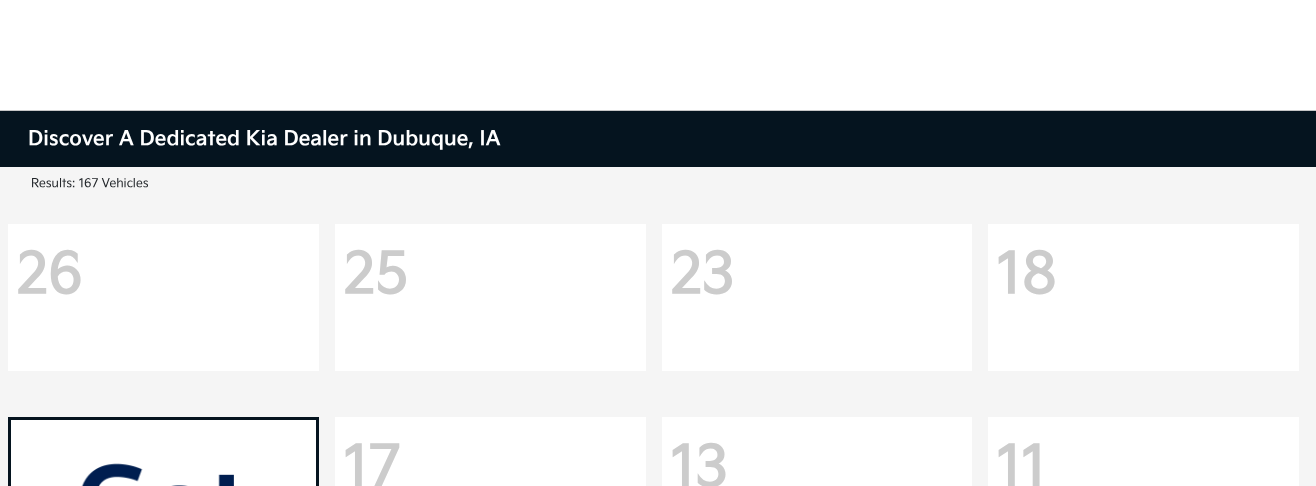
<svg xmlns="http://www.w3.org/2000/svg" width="1316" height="486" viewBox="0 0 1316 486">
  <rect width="100%" height="100%" fill="rgb(255,255,255)"/>
  <rect x="0" y="167" width="1316" height="319" fill="rgb(245,245,245)"/>
  <rect x="0" y="111" width="1316" height="56" fill="rgb(5,20,31)"/>
  <rect x="0" y="110" width="1316" height="1" fill="rgb(198,198,198)"/>
  <text x="28" y="145" font-family="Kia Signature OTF" font-size="20" font-weight="bold" fill="rgb(255,255,255)">Discover A Dedicated Kia Dealer in Dubuque, IA</text>
  <text x="31" y="187" font-family="Kia Signature OTF" font-size="12" fill="rgb(33,37,41)">Results: 167 Vehicles</text>
  <rect x="8" y="224" width="311" height="147" fill="rgb(255,255,255)"/>
  <text x="16" y="293" font-family="'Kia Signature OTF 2'" font-size="56" font-weight="bold" fill="rgb(204,204,204)">26</text>
  <rect x="335" y="224" width="311" height="147" fill="rgb(255,255,255)"/>
  <text x="343" y="293" font-family="'Kia Signature OTF 2'" font-size="56" font-weight="bold" fill="rgb(204,204,204)">25</text>
  <rect x="662" y="224" width="310" height="147" fill="rgb(255,255,255)"/>
  <text x="670" y="293" font-family="'Kia Signature OTF 2'" font-size="56" font-weight="bold" fill="rgb(204,204,204)">23</text>
  <rect x="988" y="224" width="311" height="147" fill="rgb(255,255,255)"/>
  <text x="996" y="293" font-family="'Kia Signature OTF 2'" font-size="56" font-weight="bold" fill="rgb(204,204,204)">18</text>
  <rect x="9.5" y="418.5" width="308" height="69" fill="none" stroke="rgb(5,20,31)" stroke-width="3"/>
  <rect x="11" y="420" width="305" height="66" fill="rgb(255,255,255)"/>
  <image x="81" y="463" width="153" height="23" href="pic1.png"/>
  <rect x="335" y="417" width="311" height="69" fill="rgb(255,255,255)"/>
  <text x="343" y="486" font-family="'Kia Signature OTF 2'" font-size="56" font-weight="bold" fill="rgb(204,204,204)">17</text>
  <rect x="662" y="417" width="310" height="69" fill="rgb(255,255,255)"/>
  <text x="670" y="486" font-family="'Kia Signature OTF 2'" font-size="56" font-weight="bold" fill="rgb(204,204,204)">13</text>
  <rect x="988" y="417" width="311" height="69" fill="rgb(255,255,255)"/>
  <text x="996" y="486" font-family="'Kia Signature OTF 2'" font-size="56" font-weight="bold" fill="rgb(204,204,204)">11</text>
</svg>
